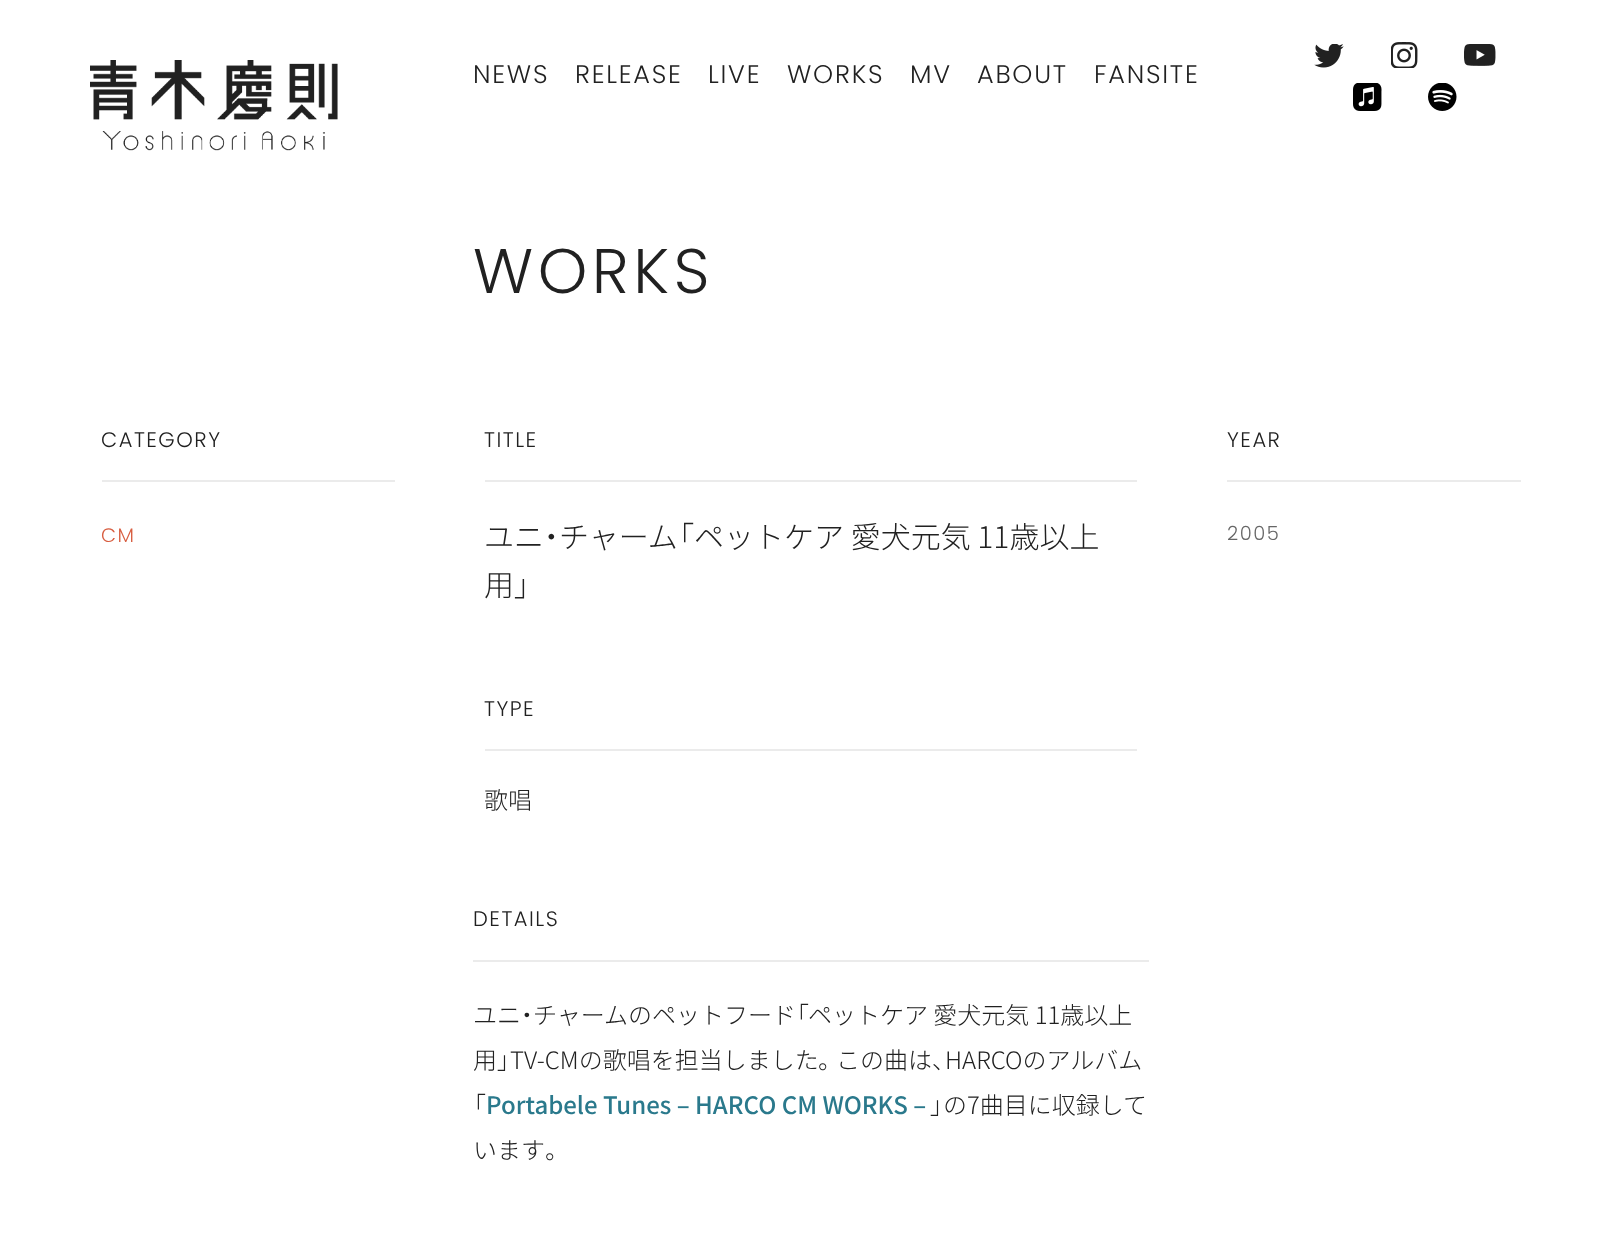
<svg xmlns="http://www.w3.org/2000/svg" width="1621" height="1246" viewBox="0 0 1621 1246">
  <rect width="100%" height="100%" fill="rgb(255,255,255)"/>
  <image x="90" y="60" width="248" height="91" href="pic1.png"/>
  <g font-family="Poppins" font-size="25.5" font-weight="300" letter-spacing="1.75" fill="rgb(33,33,33)">
    <text x="473" y="83">NEWS</text>
    <text x="575" y="83">RELEASE</text>
    <text x="708" y="83">LIVE</text>
    <text x="787" y="83">WORKS</text>
    <text x="910" y="83">MV</text>
    <text x="977" y="83">ABOUT</text>
    <text x="1094" y="83">FANSITE</text>
  </g>
  <image x="1314" y="44" width="30" height="24" href="pic2.png"/>
  <image x="1391" y="42" width="27" height="26" href="pic3.png"/>
  <image x="1464" y="44" width="32" height="22" href="pic4.png"/>
  <image x="1353" y="83" width="29" height="28" href="pic5.png"/>
  <image x="1428" y="83" width="29" height="28" href="pic6.png"/>
  <text x="473" y="293" font-family="Poppins" font-size="63" font-weight="300" letter-spacing="4.5" fill="rgb(33,33,33)">WORKS</text>
  <rect x="102" y="480" width="293" height="2" fill="rgb(235,235,235)"/>
  <text x="101" y="447" font-family="Poppins" font-size="21" font-weight="300" letter-spacing="1.5" fill="rgb(33,33,33)">CATEGORY</text>
  <text x="101" y="542" font-family="Poppins" font-size="19.5" font-weight="300" letter-spacing="1.5" fill="rgb(216,94,65)">CM</text>
  <rect x="485" y="480" width="652" height="2" fill="rgb(235,235,235)"/>
  <text x="484" y="447" font-family="Poppins" font-size="21" font-weight="300" letter-spacing="1.5" fill="rgb(33,33,33)">TITLE</text>
  <text x="484" y="548" font-family="Noto Sans JP" font-size="30" font-weight="300" fill="rgb(33,33,33)">ユニ</text>
  <text x="544" y="548" font-family="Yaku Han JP" font-size="30" font-weight="300" fill="rgb(33,33,33)">・</text>
  <text x="559" y="548" font-family="Noto Sans JP" font-size="30" font-weight="300" fill="rgb(33,33,33)">チャーム</text>
  <text x="678" y="548" font-family="Yaku Han JP" font-size="30" font-weight="300" fill="rgb(33,33,33)">「</text>
  <g font-family="Noto Sans JP" font-size="30" font-weight="300" fill="rgb(33,33,33)">
    <text x="694" y="548">ペットケア 愛犬元気 11歳以上</text>
    <text x="484" y="596">用</text>
  </g>
  <text x="514" y="596" font-family="Yaku Han JP" font-size="30" font-weight="300" fill="rgb(33,33,33)">」</text>
  <rect x="485" y="749" width="652" height="2" fill="rgb(235,235,235)"/>
  <text x="484" y="716" font-family="Poppins" font-size="21" font-weight="300" letter-spacing="1.5" fill="rgb(33,33,33)">TYPE</text>
  <text x="484" y="809" font-family="Noto Sans JP" font-size="24" font-weight="300" fill="rgb(33,33,33)">歌唱</text>
  <rect x="1227" y="480" width="294" height="2" fill="rgb(235,235,235)"/>
  <text x="1227" y="447" font-family="Poppins" font-size="21" font-weight="300" letter-spacing="1.5" fill="rgb(33,33,33)">YEAR</text>
  <text x="1227" y="540" font-family="Poppins" font-size="19.5" font-weight="300" letter-spacing="1.5" fill="rgb(102,102,102)">2005</text>
  <rect x="473" y="960" width="676" height="2" fill="rgb(235,235,235)"/>
  <text x="473" y="926" font-family="Poppins" font-size="21" font-weight="300" letter-spacing="1.5" fill="rgb(33,33,33)">DETAILS</text>
  <text x="473" y="1024" font-family="Noto Sans JP" font-size="24" font-weight="300" fill="rgb(33,33,33)">ユニ</text>
  <text x="521" y="1024" font-family="Yaku Han JP" font-size="24" font-weight="300" fill="rgb(33,33,33)">・</text>
  <text x="533" y="1024" font-family="Noto Sans JP" font-size="24" font-weight="300" fill="rgb(33,33,33)">チャームのペットフード</text>
  <text x="796" y="1024" font-family="Yaku Han JP" font-size="24" font-weight="300" fill="rgb(33,33,33)">「</text>
  <g font-family="Noto Sans JP" font-size="24" font-weight="300" fill="rgb(33,33,33)">
    <text x="808" y="1024">ペットケア 愛犬元気 11歳以上</text>
    <text x="473" y="1069">用</text>
  </g>
  <text x="497" y="1069" font-family="Yaku Han JP" font-size="24" font-weight="300" fill="rgb(33,33,33)">」</text>
  <text x="510" y="1069" font-family="Noto Sans JP" font-size="24" font-weight="300" fill="rgb(33,33,33)">TV-CMの歌唱を担当しました</text>
  <text x="818" y="1069" font-family="Yaku Han JP" font-size="24" font-weight="300" fill="rgb(33,33,33)">。</text>
  <text x="836" y="1069" font-family="Noto Sans JP" font-size="24" font-weight="300" fill="rgb(33,33,33)">この曲は</text>
  <text x="932" y="1069" font-family="Yaku Han JP" font-size="24" font-weight="300" fill="rgb(33,33,33)">、</text>
  <text x="945" y="1069" font-family="Noto Sans JP" font-size="24" font-weight="300" fill="rgb(33,33,33)">HARCOのアルバム</text>
  <text x="473" y="1114" font-family="Yaku Han JP" font-size="24" font-weight="300" fill="rgb(33,33,33)">「</text>
  <text x="486" y="1114" font-family="Noto Sans JP" font-size="24" font-weight="500" fill="rgb(42,121,140)">Portabele Tunes – HARCO CM WORKS –</text>
  <text x="930" y="1114" font-family="Yaku Han JP" font-size="24" font-weight="300" fill="rgb(33,33,33)">」</text>
  <g font-family="Noto Sans JP" font-size="24" font-weight="300" fill="rgb(33,33,33)">
    <text x="943" y="1114">の7曲目に収録して</text>
    <text x="473" y="1159">います</text>
  </g>
  <text x="545" y="1159" font-family="Yaku Han JP" font-size="24" font-weight="300" fill="rgb(33,33,33)">。</text>
</svg>
